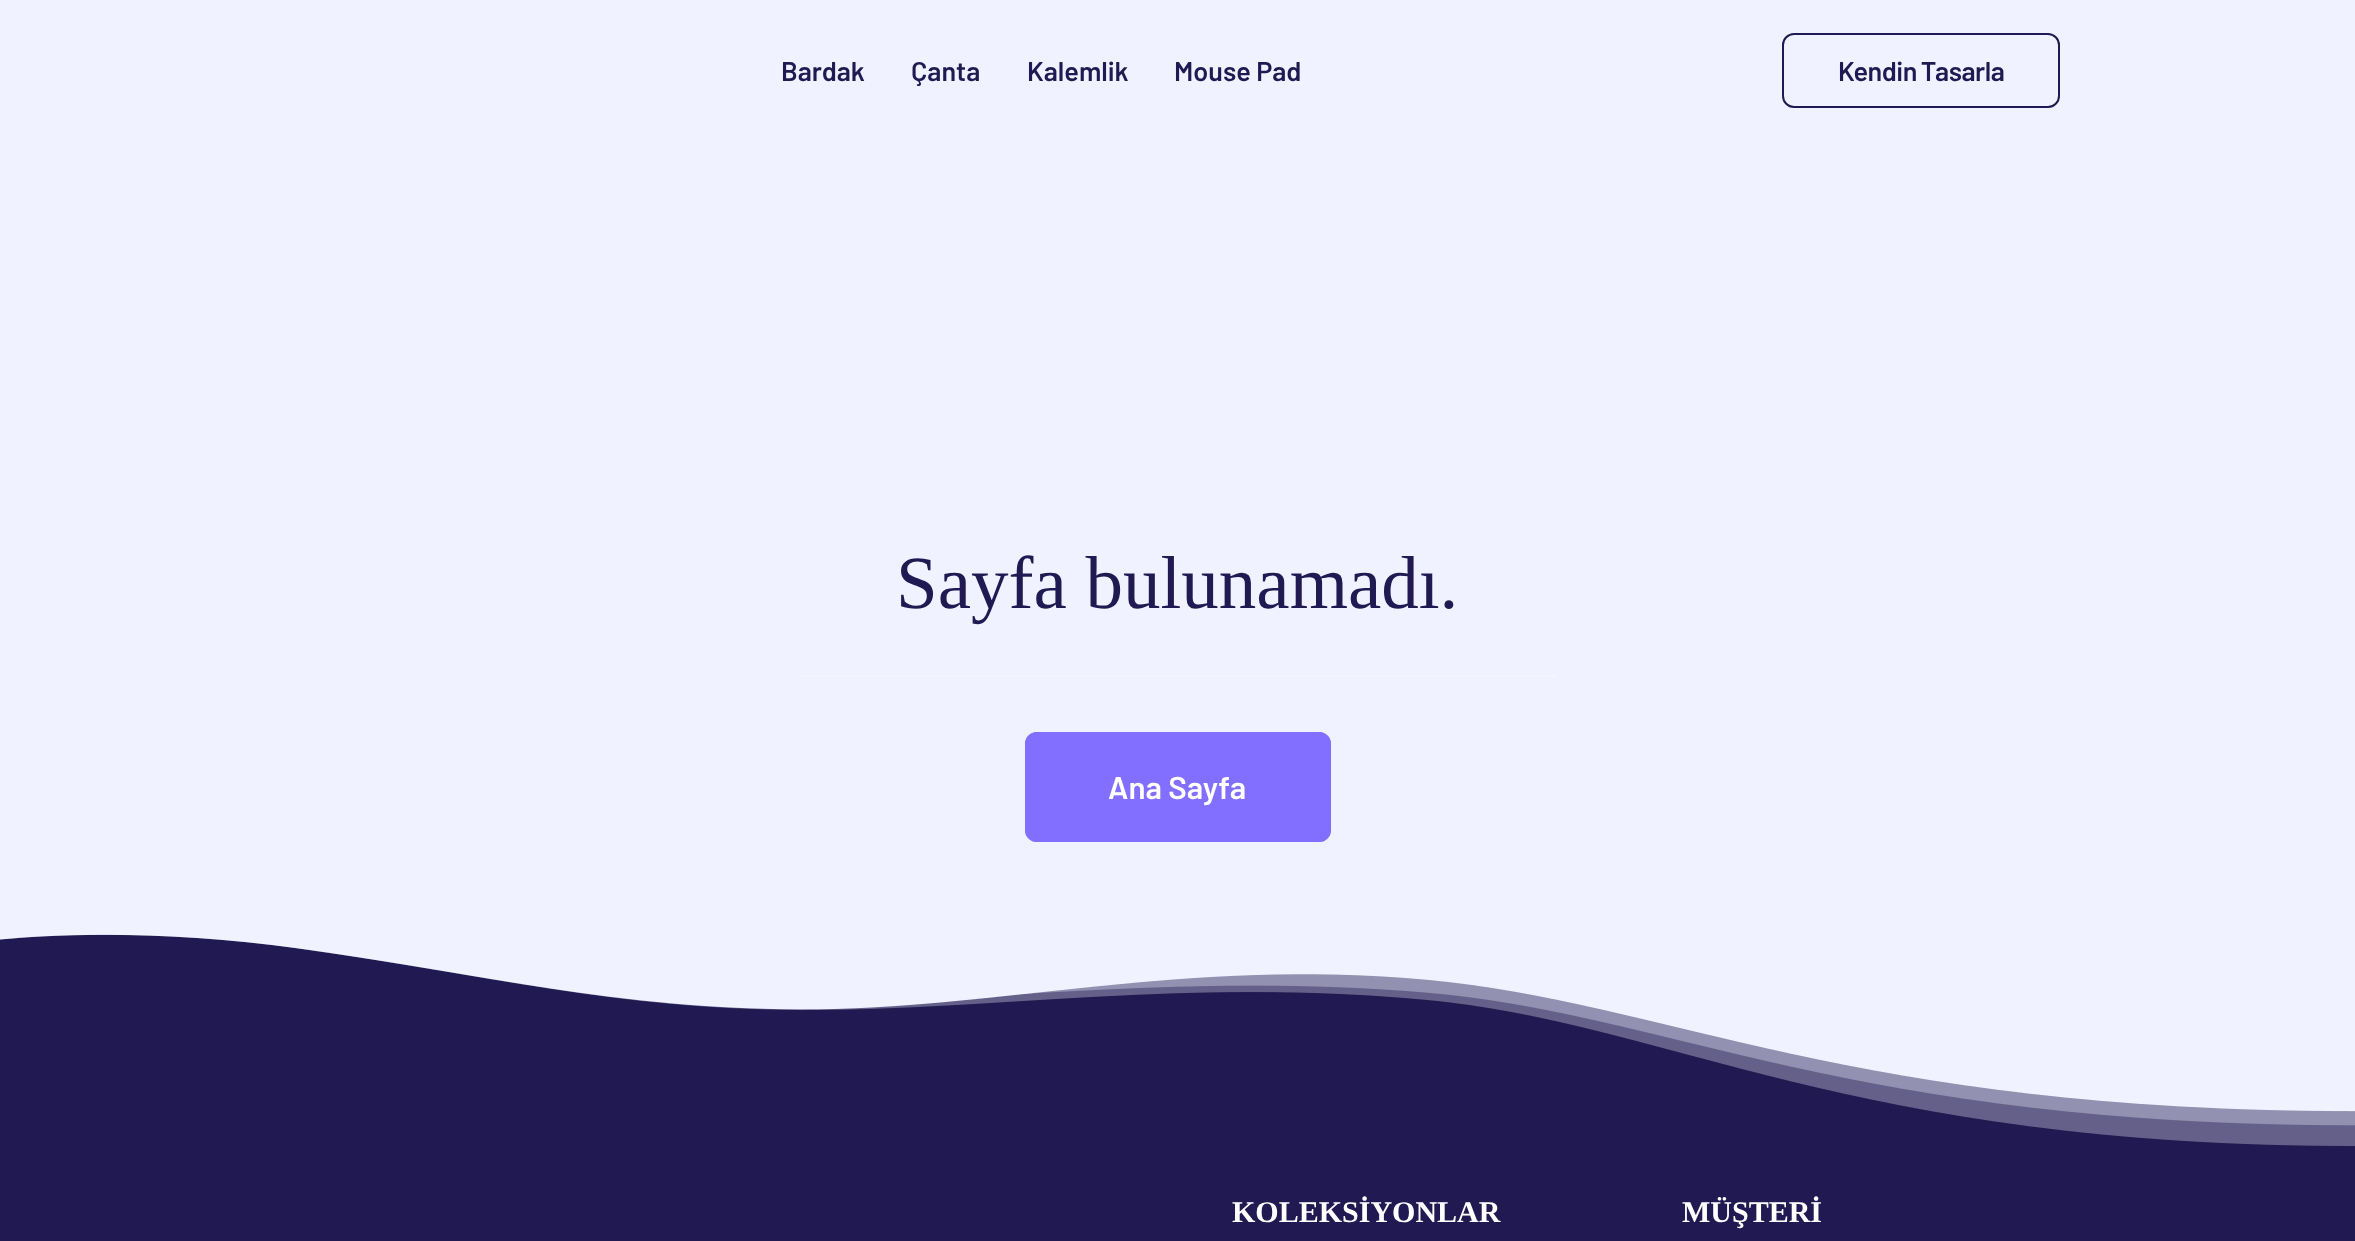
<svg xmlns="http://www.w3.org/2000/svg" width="2355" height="1241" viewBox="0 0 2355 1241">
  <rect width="100%" height="100%" fill="rgb(240,243,255)"/>
  <g font-family="Barlow" font-size="27" font-weight="600" fill="rgb(33,25,81)">
    <text x="781" y="81">Bardak</text>
    <text x="911" y="81">Çanta</text>
    <text x="1027" y="81">Kalemlik</text>
    <text x="1174" y="81">Mouse Pad</text>
  </g>
  <rect x="1783" y="34" width="276" height="73" rx="11" fill="none" stroke="rgb(33,25,81)" stroke-width="2"/>
  <text x="1838" y="81" word-spacing="-1" font-family="Barlow" font-size="27" font-weight="600" letter-spacing="-0.5" fill="rgb(33,25,81)">Kendin Tasarla</text>
  <text x="896" y="608" font-family="Liberation Serif" font-size="75" fill="rgb(33,25,81)">Sayfa bulunamadı.</text>
  <rect x="800" y="675" width="756" height="2" fill="rgb(244,246,255)"/>
  <rect x="1026" y="733" width="304" height="108" rx="11" fill="rgb(131,111,255)" stroke="rgb(131,111,255)" stroke-width="2"/>
  <rect x="1026" y="733" width="304" height="108" rx="11" fill="none" stroke="rgb(131,111,255)" stroke-width="2"/>
  <text x="1108" y="799" font-family="Barlow" font-size="31.5" font-weight="600" fill="rgb(255,255,255)">Ana Sayfa</text>
  <rect x="0" y="934" width="2355" height="307" fill="rgb(33,25,81)"/>
  <image x="0" y="924" width="2355" height="222" href="pic1.png"/>
  <g font-family="Liberation Serif" font-size="30" font-weight="bold" fill="rgb(255,255,255)">
    <text x="1232" y="1222">KOLEKSİYONLAR</text>
    <text x="1682" y="1222">MÜŞTERİ</text>
  </g>
</svg>
